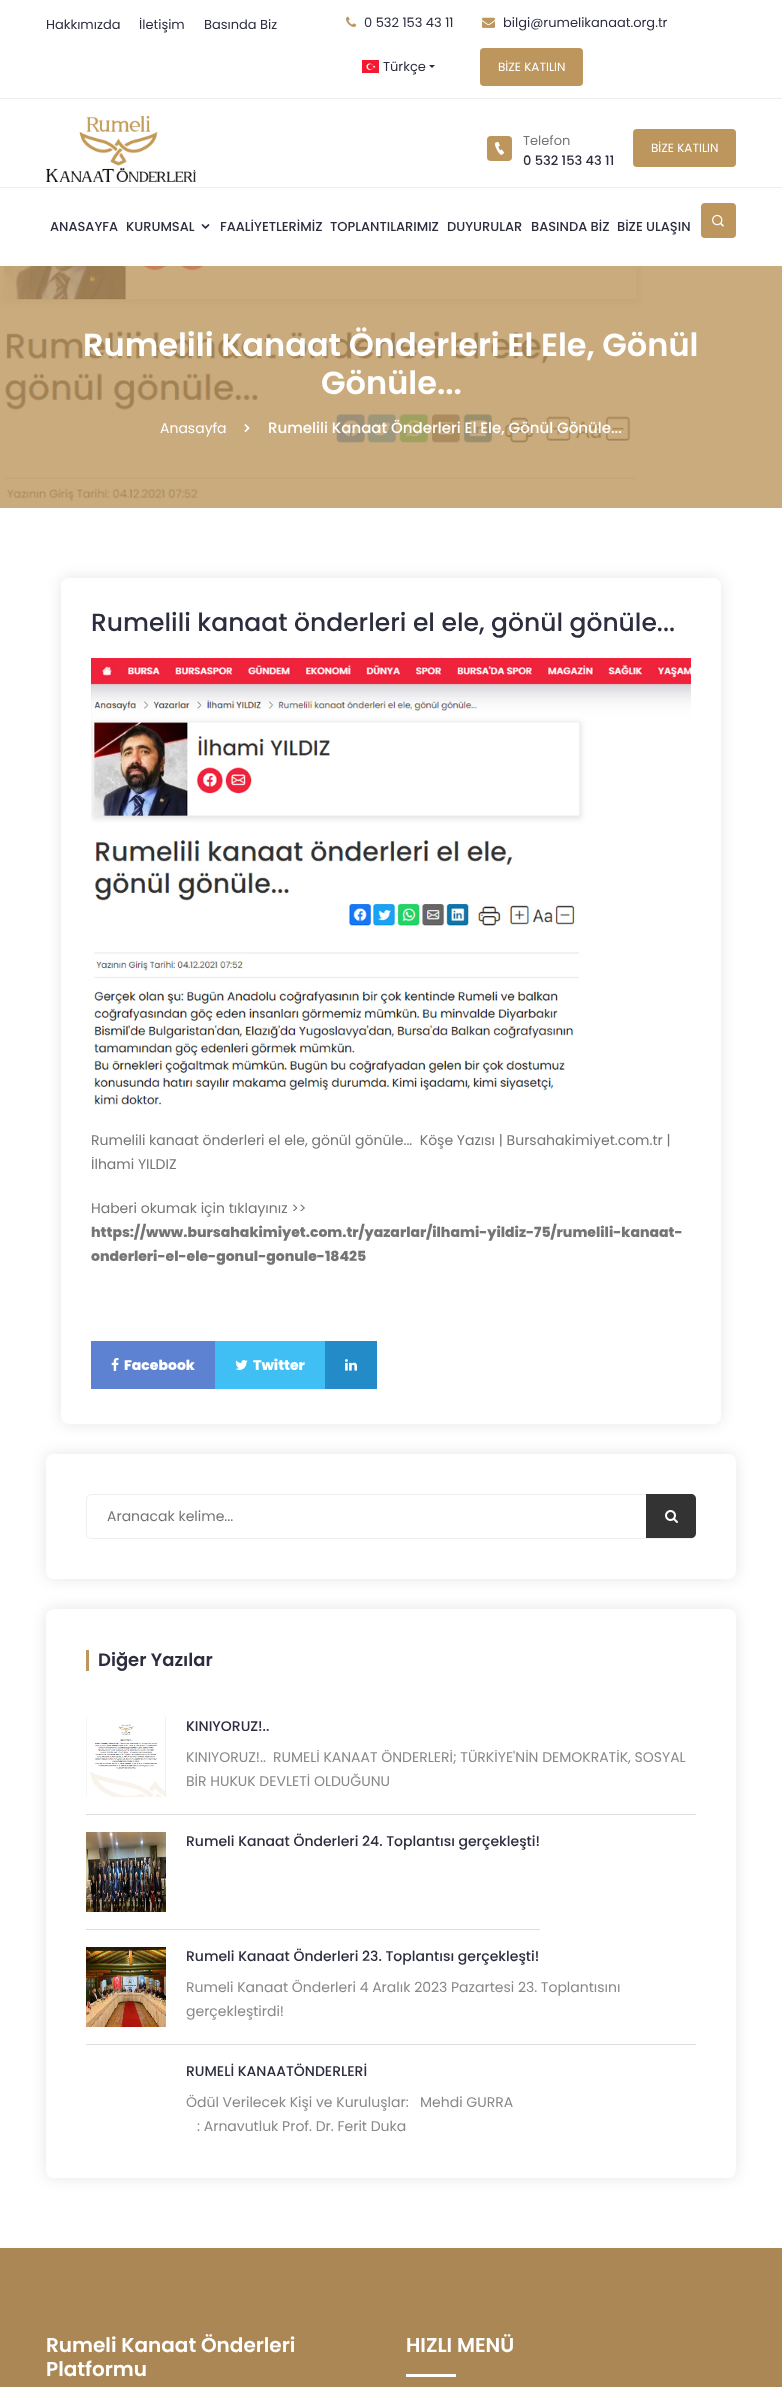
<svg xmlns="http://www.w3.org/2000/svg" width="782" height="2387" viewBox="0 0 782 2387">
  <rect width="100%" height="100%" fill="rgb(255,255,255)"/>
  <rect x="0" y="266" width="782" height="242" fill="rgb(202,171,125)"/>
  <rect x="0" y="98" width="782" height="1" fill="rgb(238,238,238)"/>
  <g font-family="Poppins" font-size="13" fill="rgb(44,45,63)">
    <text x="46" y="29">Hakkımızda</text>
    <text x="139" y="29">İletişim</text>
    <text x="204" y="29">Basında Biz</text>
  </g>
  <image x="346" y="16" width="11" height="11" href="pic1.png"/>
  <text x="364" y="27" font-family="Poppins" font-size="13" fill="rgb(44,45,63)">0 532 153 43 11</text>
  <image x="482" y="17" width="13" height="11" href="pic2.png"/>
  <text x="503" y="27" font-family="Poppins" font-size="13" fill="rgb(44,45,63)">bilgi@rumelikanaat.org.tr</text>
  <image x="362" y="60" width="17" height="13" href="pic3.png"/>
  <text x="383" y="71" font-family="Poppins" font-size="13" fill="rgb(44,45,63)">Türkçe</text>
  <path d="M429 65H435L432 68Z" fill="rgb(44,45,63)"/>
  <rect x="480" y="48" width="103" height="38" rx="4" fill="rgb(189,150,93)"/>
  <text x="498" y="71" font-family="Poppins" font-size="12" fill="rgb(255,255,255)">BİZE KATILIN</text>
  <image x="46" y="116" width="150" height="66" href="pic4.png"/>
  <rect x="487" y="136" width="25" height="25" rx="4" fill="rgb(189,150,93)"/>
  <image x="495" y="142" width="9" height="13" href="pic5.png"/>
  <text x="523" y="145" font-family="Poppins" font-size="13" fill="rgb(117,117,117)">Telefon</text>
  <text x="523" y="165" font-family="Poppins" font-size="13" font-weight="500" fill="rgb(44,45,63)">0 532 153 43 11</text>
  <rect x="633" y="129" width="103" height="38" rx="4" fill="rgb(189,150,93)"/>
  <text x="651" y="152" font-family="Poppins" font-size="12" fill="rgb(255,255,255)">BİZE KATILIN</text>
  <rect x="0" y="187" width="782" height="1" fill="rgb(238,238,238)"/>
  <g font-family="Poppins" font-size="13" font-weight="500" fill="rgb(44,45,63)">
    <text x="50" y="231">ANASAYFA</text>
    <text x="126" y="231">KURUMSAL</text>
  </g>
  <image x="201" y="224" width="9" height="5" href="pic6.png"/>
  <g font-family="Poppins" font-size="13" font-weight="500" fill="rgb(44,45,63)">
    <text x="220" y="231">FAALİYETLERİMİZ</text>
    <text x="330" y="231">TOPLANTILARIMIZ</text>
    <text x="447" y="231">DUYURULAR</text>
    <text x="531" y="231">BASINDA BİZ</text>
    <text x="617" y="231">BİZE ULAŞIN</text>
  </g>
  <rect x="701" y="203" width="35" height="35" rx="4" fill="rgb(189,150,93)"/>
  <image x="712" y="214" width="12" height="13" href="pic7.png"/>
  <image x="0" y="266" width="642" height="236" href="pic8.png"/>
  <g font-family="Poppins" font-size="32" font-weight="600" fill="rgb(255,255,255)">
    <text x="83" y="356">Rumelili Kanaat Önderleri El Ele, Gönül</text>
    <text x="321" y="394">Gönüle...</text>
  </g>
  <text x="160" y="433" font-family="Poppins" font-size="14" fill="rgb(255,255,255)">Anasayfa</text>
  <image x="244" y="424" width="6" height="9" href="pic9.png"/>
  <text x="268" y="433" font-family="Poppins" font-size="15" font-weight="500" fill="rgb(255,255,255)">Rumelili Kanaat Önderleri El Ele, Gönül Gönüle...</text>
  <rect x="61" y="578" width="660" height="846" rx="8" fill="rgba(0,0,0,0.1)" filter="blur(7.5px)"/>
  <rect x="61" y="578" width="660" height="846" rx="8" fill="rgb(255,255,255)"/>
  <text x="91" y="631" font-family="Poppins" font-size="25" font-weight="500" fill="rgb(44,45,63)">Rumelili kanaat önderleri el ele, gönül gönüle...</text>
  <image x="91" y="658" width="600" height="447" href="pic10.png"/>
  <g font-family="Poppins" font-size="14" fill="rgb(117,117,117)">
    <text xml:space="preserve"><tspan x="91" y="1145">Rumelili kanaat önderleri el ele, gönül gönüle...  Köşe Yazısı | Bursahakimiyet.com.tr |</tspan><tspan x="91" y="1169">İlhami YILDIZ</tspan></text>
    <text x="91" y="1213">Haberi okumak için tıklayınız &gt;&gt;</text>
  </g>
  <g font-family="Poppins" font-size="14" font-weight="800" fill="rgb(117,117,117)">
    <text>
      <tspan x="91" y="1237">https://www.bursahakimiyet.com.tr/yazarlar/ilhami-yildiz-75/rumelili-kanaat-</tspan>
      <tspan x="91" y="1261">onderleri-el-ele-gonul-gonule-18425</tspan>
    </text>
  </g>
  <rect x="91" y="1341" width="124" height="48" fill="rgb(93,130,209)"/>
  <image x="111" y="1358" width="8" height="13" href="pic11.png"/>
  <text x="124" y="1370" font-family="Poppins" font-size="14" font-weight="800" fill="rgb(255,255,255)">Facebook</text>
  <rect x="215" y="1341" width="110" height="48" fill="rgb(64,191,245)"/>
  <image x="235" y="1360" width="13" height="10" href="pic12.png"/>
  <text x="253" y="1370" font-family="Poppins" font-size="14" font-weight="800" fill="rgb(255,255,255)">Twitter</text>
  <rect x="325" y="1341" width="52" height="48" fill="rgb(35,140,200)"/>
  <image x="345" y="1359" width="12" height="12" href="pic13.png"/>
  <rect x="46" y="1454" width="690" height="125" rx="8" fill="rgba(0,0,0,0.1)" filter="blur(7.5px)"/>
  <rect x="46" y="1454" width="690" height="125" rx="8" fill="rgb(255,255,255)"/>
  <rect x="86.5" y="1494.5" width="609" height="44" rx="4.5" fill="none" stroke="rgb(238,238,238)"/>
  <text x="107" y="1521" font-family="Poppins" font-size="14" fill="rgb(117,117,117)">Aranacak kelime...</text>
  <path d="M646 1494H691C694 1494 696 1496 696 1499V1533C696 1536 694 1538 691 1538H646Z" fill="rgb(51,51,51)"/>
  <image x="665" y="1510" width="13" height="13" href="pic14.png"/>
  <rect x="46" y="1609" width="690" height="569" rx="8" fill="rgba(0,0,0,0.1)" filter="blur(7.5px)"/>
  <rect x="46" y="1609" width="690" height="569" rx="8" fill="rgb(255,255,255)"/>
  <rect x="86" y="1650" width="3" height="21" fill="rgb(189,150,93)"/>
  <text x="98" y="1666" font-family="Poppins" font-size="18" font-weight="600" fill="rgb(44,45,63)">Diğer Yazılar</text>
  <rect x="86" y="1814" width="610" height="1" fill="rgb(221,221,221)"/>
  <image x="86" y="1717" width="80" height="80" href="pic15.png"/>
  <text x="186" y="1731" font-family="Poppins" font-size="14" font-weight="500" fill="rgb(44,45,63)">KINIYORUZ!..</text>
  <g font-family="Poppins" font-size="14" fill="rgb(136,136,136)">
    <text x="186" y="1762">KINIYORUZ!..</text>
    <text x="273" y="1762">RUMELİ KANAAT ÖNDERLERİ; TÜRKİYE'NİN DEMOKRATİK, SOSYAL</text>
    <text x="186" y="1786">BİR HUKUK DEVLETİ OLDUĞUNU</text>
  </g>
  <rect x="86" y="1929" width="454" height="1" fill="rgb(221,221,221)"/>
  <image x="86" y="1832" width="80" height="80" href="pic16.png"/>
  <text x="186" y="1846" font-family="Poppins" font-size="14" font-weight="500" fill="rgb(44,45,63)">Rumeli Kanaat Önderleri 24. Toplantısı gerçekleşti!</text>
  <rect x="86" y="2044" width="610" height="1" fill="rgb(221,221,221)"/>
  <image x="86" y="1947" width="80" height="80" href="pic17.png"/>
  <text x="186" y="1961" font-family="Poppins" font-size="14" font-weight="500" fill="rgb(44,45,63)">Rumeli Kanaat Önderleri 23. Toplantısı gerçekleşti!</text>
  <g font-family="Poppins" font-size="14" fill="rgb(136,136,136)">
    <text>
      <tspan x="186" y="1992">Rumeli Kanaat Önderleri 4 Aralık 2023 Pazartesi 23. Toplantısını</tspan>
      <tspan x="186" y="2016">gerçekleştirdi!</tspan>
    </text>
  </g>
  <text x="186" y="2076" font-family="Poppins" font-size="14" font-weight="500" fill="rgb(44,45,63)">RUMELİ KANAATÖNDERLERİ</text>
  <g font-family="Poppins" font-size="14" fill="rgb(136,136,136)">
    <text x="186" y="2107">Ödül Verilecek Kişi ve Kuruluşlar:</text>
    <text x="420" y="2107">Mehdi GURRA</text>
    <text x="197" y="2131">: Arnavutluk Prof. Dr. Ferit Duka</text>
  </g>
  <rect x="0" y="2248" width="782" height="139" fill="rgb(170,135,84)"/>
  <g font-family="Poppins" font-size="20" font-weight="600" fill="rgb(255,255,255)">
    <text>
      <tspan x="46" y="2352">Rumeli Kanaat Önderleri</tspan>
      <tspan x="46" y="2376">Platformu</tspan>
    </text>
    <text x="406" y="2352">HIZLI MENÜ</text>
  </g>
  <rect x="406" y="2374" width="50" height="3" fill="rgb(255,255,255)"/>
</svg>
